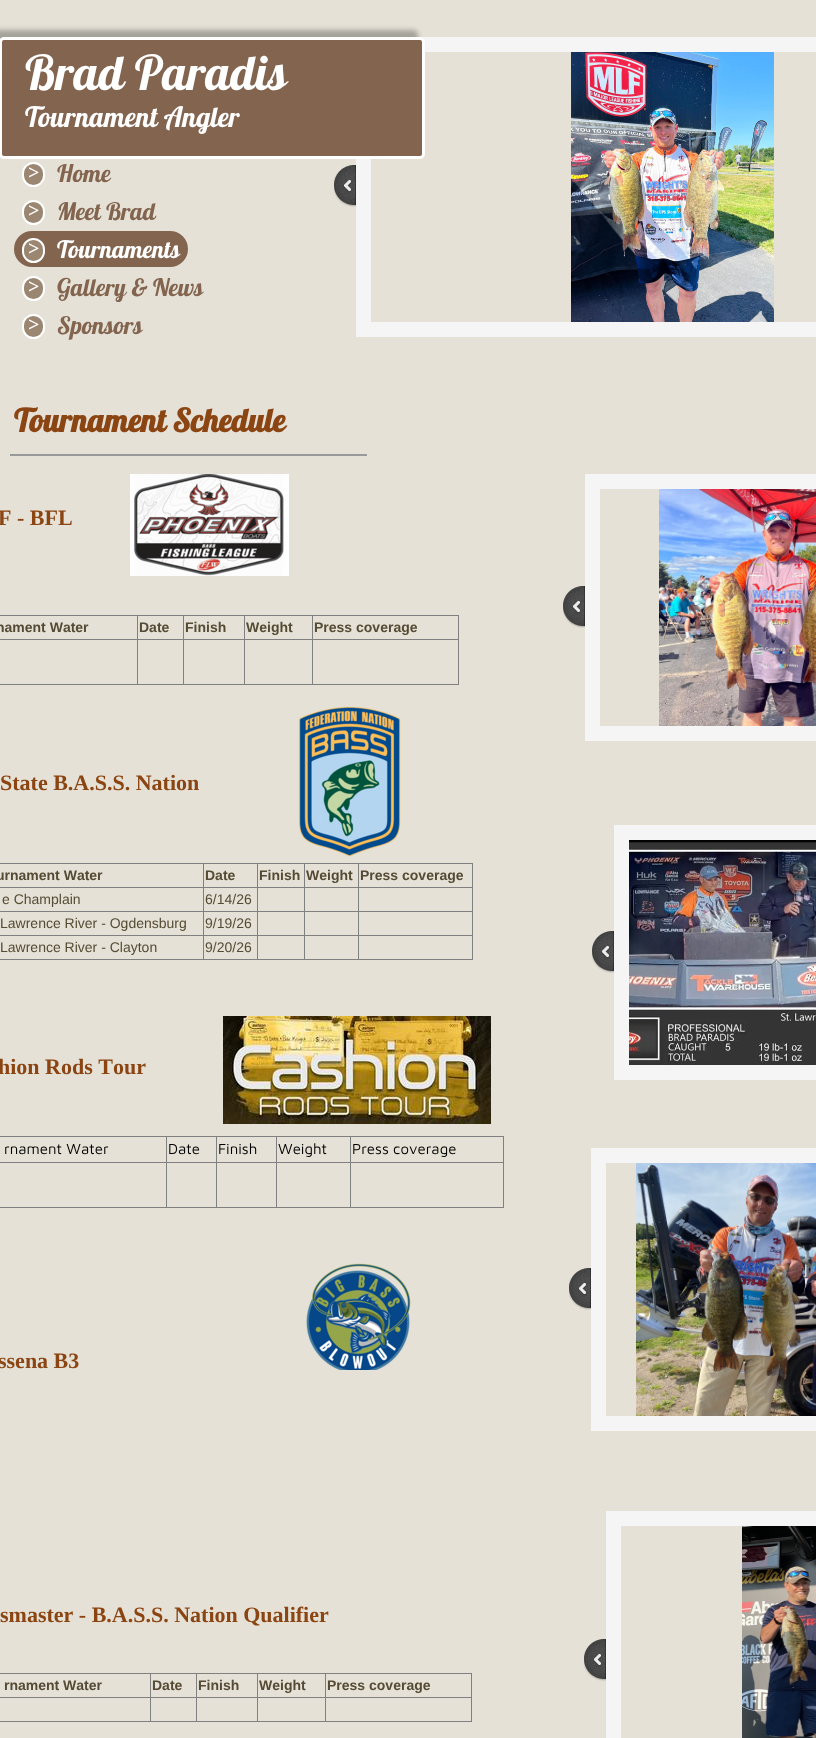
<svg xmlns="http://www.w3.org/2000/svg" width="816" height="1738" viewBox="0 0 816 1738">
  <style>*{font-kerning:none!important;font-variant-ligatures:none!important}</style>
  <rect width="100%" height="100%" fill="rgb(229,225,214)"/>
  <rect x="363.5" y="44.5" width="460" height="285" fill="none" stroke="rgb(245,245,245)" stroke-width="15"/>
  <rect x="-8" y="30" width="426" height="122" rx="5" fill="rgba(0,0,0,0.28)" filter="blur(2.5px)"/>
  <rect x="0.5" y="38.5" width="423" height="119" rx="3.5" fill="rgb(130,100,79)" stroke="rgb(255,255,255)" stroke-width="3"/>
  <image x="334" y="165" width="22" height="42" href="pic1.png"/>
  <image x="571" y="52" width="203" height="270" href="pic2.png"/>
  <text x="25" y="90" font-family="Lobster" font-size="48" fill="rgb(255,255,255)">Brad Paradis</text>
  <text x="25" y="127" font-family="Lobster" font-size="28" fill="rgb(255,255,255)">Tournament Angler</text>
  <rect x="23" y="163" width="21" height="23" rx="10.5" fill="rgb(155,134,113)" stroke="rgb(255,255,255)" stroke-width="2"/>
  <text x="28" y="179" font-family="Liberation Serif" font-size="20" font-weight="bold" fill="rgb(255,255,255)">&gt;</text>
  <text x="57" y="182" font-family="Lobster" font-size="24" fill="rgb(130,100,79)">Home</text>
  <rect x="23" y="201" width="21" height="23" rx="10.5" fill="rgb(155,134,113)" stroke="rgb(255,255,255)" stroke-width="2"/>
  <text x="28" y="217" font-family="Liberation Serif" font-size="20" font-weight="bold" fill="rgb(255,255,255)">&gt;</text>
  <text x="57" y="220" font-family="Lobster" font-size="24" fill="rgb(130,100,79)">Meet Brad</text>
  <rect x="14" y="231" width="174" height="36" rx="18" fill="rgb(130,100,79)"/>
  <rect x="23" y="239" width="21" height="23" rx="10.5" fill="rgb(155,134,113)" stroke="rgb(255,255,255)" stroke-width="2"/>
  <text x="28" y="255" font-family="Liberation Serif" font-size="20" font-weight="bold" fill="rgb(255,255,255)">&gt;</text>
  <text x="57" y="258" font-family="Lobster" font-size="24" fill="rgb(255,255,255)">Tournaments</text>
  <rect x="23" y="277" width="21" height="23" rx="10.5" fill="rgb(155,134,113)" stroke="rgb(255,255,255)" stroke-width="2"/>
  <text x="28" y="293" font-family="Liberation Serif" font-size="20" font-weight="bold" fill="rgb(255,255,255)">&gt;</text>
  <text x="57" y="296" font-family="Lobster" font-size="24" fill="rgb(130,100,79)">Gallery &amp; News</text>
  <rect x="23" y="315" width="21" height="23" rx="10.5" fill="rgb(155,134,113)" stroke="rgb(255,255,255)" stroke-width="2"/>
  <text x="28" y="331" font-family="Liberation Serif" font-size="20" font-weight="bold" fill="rgb(255,255,255)">&gt;</text>
  <text x="57" y="334" font-family="Lobster" font-size="24" fill="rgb(130,100,79)">Sponsors</text>
  <text x="14" y="432" font-family="Lobster" font-size="32" font-weight="bold" fill="rgb(139,69,19)">Tournament Schedule</text>
  <rect x="10" y="454" width="357" height="2" fill="rgb(153,153,153)"/>
  <text x="-2" y="525" font-family="Liberation Serif" font-size="22" font-weight="bold" fill="rgb(139,69,19)">F - BFL</text>
  <image x="130" y="474" width="159" height="102" href="pic3.png"/>
  <image x="563" y="586" width="22" height="42" href="pic1.png"/>
  <rect x="592.5" y="481.5" width="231" height="252" fill="none" stroke="rgb(245,245,245)" stroke-width="15"/>
  <image x="659" y="489" width="157" height="237" href="pic4.png"/>
  <rect x="0" y="615" width="459" height="1" fill="rgb(128,128,128)"/>
  <rect x="458" y="615" width="1" height="70" fill="rgb(128,128,128)"/>
  <rect x="0" y="684" width="459" height="1" fill="rgb(128,128,128)"/>
  <text x="-4" y="632" font-family="Liberation Sans" font-size="14" font-weight="bold" fill="rgb(85,75,53)">nament Water</text>
  <rect x="312" y="639" width="147" height="1" fill="rgb(128,128,128)"/>
  <rect x="312" y="639" width="1" height="46" fill="rgb(128,128,128)"/>
  <rect x="244" y="639" width="69" height="1" fill="rgb(128,128,128)"/>
  <rect x="244" y="639" width="1" height="46" fill="rgb(128,128,128)"/>
  <rect x="183" y="639" width="62" height="1" fill="rgb(128,128,128)"/>
  <rect x="183" y="639" width="1" height="46" fill="rgb(128,128,128)"/>
  <rect x="137" y="639" width="47" height="1" fill="rgb(128,128,128)"/>
  <rect x="137" y="639" width="1" height="46" fill="rgb(128,128,128)"/>
  <rect x="0" y="639" width="138" height="1" fill="rgb(128,128,128)"/>
  <rect x="137" y="615" width="1" height="25" fill="rgb(128,128,128)"/>
  <text x="139" y="632" font-family="Liberation Sans" font-size="14" font-weight="bold" fill="rgb(85,75,53)">Date</text>
  <rect x="183" y="615" width="1" height="25" fill="rgb(128,128,128)"/>
  <text x="185" y="632" font-family="Liberation Sans" font-size="14" font-weight="bold" fill="rgb(85,75,53)">Finish</text>
  <rect x="244" y="615" width="1" height="25" fill="rgb(128,128,128)"/>
  <text x="246" y="632" font-family="Liberation Sans" font-size="14" font-weight="bold" fill="rgb(85,75,53)">Weight</text>
  <rect x="312" y="615" width="1" height="25" fill="rgb(128,128,128)"/>
  <text x="314" y="632" font-family="Liberation Sans" font-size="14" font-weight="bold" fill="rgb(85,75,53)">Press coverage</text>
  <text x="0" y="790" font-family="Liberation Serif" font-size="22" font-weight="bold" fill="rgb(139,69,19)">State B.A.S.S. Nation</text>
  <image x="298" y="706" width="103" height="151" href="pic5.png"/>
  <rect x="0" y="863" width="473" height="1" fill="rgb(128,128,128)"/>
  <rect x="472" y="863" width="1" height="97" fill="rgb(128,128,128)"/>
  <rect x="0" y="959" width="473" height="1" fill="rgb(128,128,128)"/>
  <text x="-4" y="880" font-family="Liberation Sans" font-size="14" font-weight="bold" fill="rgb(85,75,53)">urnament Water</text>
  <rect x="358" y="887" width="115" height="1" fill="rgb(128,128,128)"/>
  <rect x="358" y="911" width="115" height="1" fill="rgb(128,128,128)"/>
  <rect x="358" y="935" width="115" height="1" fill="rgb(128,128,128)"/>
  <rect x="358" y="935" width="1" height="25" fill="rgb(128,128,128)"/>
  <rect x="304" y="935" width="55" height="1" fill="rgb(128,128,128)"/>
  <rect x="358" y="911" width="1" height="25" fill="rgb(128,128,128)"/>
  <rect x="304" y="911" width="55" height="1" fill="rgb(128,128,128)"/>
  <rect x="358" y="887" width="1" height="25" fill="rgb(128,128,128)"/>
  <rect x="304" y="887" width="55" height="1" fill="rgb(128,128,128)"/>
  <rect x="304" y="935" width="1" height="25" fill="rgb(128,128,128)"/>
  <rect x="257" y="935" width="48" height="1" fill="rgb(128,128,128)"/>
  <rect x="304" y="911" width="1" height="25" fill="rgb(128,128,128)"/>
  <rect x="257" y="911" width="48" height="1" fill="rgb(128,128,128)"/>
  <rect x="304" y="887" width="1" height="25" fill="rgb(128,128,128)"/>
  <rect x="257" y="887" width="48" height="1" fill="rgb(128,128,128)"/>
  <rect x="257" y="935" width="1" height="25" fill="rgb(128,128,128)"/>
  <rect x="203" y="935" width="55" height="1" fill="rgb(128,128,128)"/>
  <rect x="257" y="911" width="1" height="25" fill="rgb(128,128,128)"/>
  <rect x="203" y="911" width="55" height="1" fill="rgb(128,128,128)"/>
  <rect x="257" y="887" width="1" height="25" fill="rgb(128,128,128)"/>
  <rect x="203" y="887" width="55" height="1" fill="rgb(128,128,128)"/>
  <rect x="203" y="935" width="1" height="25" fill="rgb(128,128,128)"/>
  <rect x="0" y="935" width="204" height="1" fill="rgb(128,128,128)"/>
  <rect x="203" y="911" width="1" height="25" fill="rgb(128,128,128)"/>
  <rect x="0" y="911" width="204" height="1" fill="rgb(128,128,128)"/>
  <rect x="203" y="887" width="1" height="25" fill="rgb(128,128,128)"/>
  <rect x="0" y="887" width="204" height="1" fill="rgb(128,128,128)"/>
  <rect x="203" y="863" width="1" height="25" fill="rgb(128,128,128)"/>
  <text x="205" y="880" font-family="Liberation Sans" font-size="14" font-weight="bold" fill="rgb(85,75,53)">Date</text>
  <rect x="257" y="863" width="1" height="25" fill="rgb(128,128,128)"/>
  <text x="259" y="880" font-family="Liberation Sans" font-size="14" font-weight="bold" fill="rgb(85,75,53)">Finish</text>
  <rect x="304" y="863" width="1" height="25" fill="rgb(128,128,128)"/>
  <text x="306" y="880" font-family="Liberation Sans" font-size="14" font-weight="bold" fill="rgb(85,75,53)">Weight</text>
  <rect x="358" y="863" width="1" height="25" fill="rgb(128,128,128)"/>
  <text x="360" y="880" font-family="Liberation Sans" font-size="14" font-weight="bold" fill="rgb(85,75,53)">Press coverage</text>
  <g font-family="Liberation Sans" font-size="14" fill="rgb(85,75,53)">
    <text x="2" y="904">e Champlain</text>
    <text x="205" y="904">6/14/26</text>
    <text x="0" y="928">Lawrence River - Ogdensburg</text>
    <text x="205" y="928">9/19/26</text>
    <text x="0" y="952">Lawrence River - Clayton</text>
    <text x="205" y="952">9/20/26</text>
  </g>
  <image x="592" y="931" width="22" height="42" href="pic1.png"/>
  <rect x="621.5" y="832.5" width="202" height="240" fill="none" stroke="rgb(245,245,245)" stroke-width="15"/>
  <image x="629" y="840" width="187" height="225" href="pic6.png"/>
  <text x="-2" y="1074" font-family="Liberation Serif" font-size="22" font-weight="bold" fill="rgb(139,69,19)">hion Rods Tour</text>
  <image x="223" y="1016" width="268" height="108" href="pic7.png"/>
  <rect x="0" y="1136" width="504" height="1" fill="rgb(128,128,128)"/>
  <rect x="503" y="1136" width="1" height="72" fill="rgb(128,128,128)"/>
  <rect x="0" y="1207" width="504" height="1" fill="rgb(128,128,128)"/>
  <text x="4" y="1154" font-family="Maven Pro" font-size="15" fill="rgb(0,0,0)">rnament Water</text>
  <rect x="350" y="1162" width="154" height="1" fill="rgb(128,128,128)"/>
  <rect x="350" y="1162" width="1" height="46" fill="rgb(128,128,128)"/>
  <rect x="276" y="1162" width="75" height="1" fill="rgb(128,128,128)"/>
  <rect x="276" y="1162" width="1" height="46" fill="rgb(128,128,128)"/>
  <rect x="216" y="1162" width="61" height="1" fill="rgb(128,128,128)"/>
  <rect x="216" y="1162" width="1" height="46" fill="rgb(128,128,128)"/>
  <rect x="166" y="1162" width="51" height="1" fill="rgb(128,128,128)"/>
  <rect x="166" y="1162" width="1" height="46" fill="rgb(128,128,128)"/>
  <rect x="0" y="1162" width="167" height="1" fill="rgb(128,128,128)"/>
  <rect x="166" y="1136" width="1" height="27" fill="rgb(128,128,128)"/>
  <text x="168" y="1154" font-family="Maven Pro" font-size="15" fill="rgb(0,0,0)">Date</text>
  <rect x="216" y="1136" width="1" height="27" fill="rgb(128,128,128)"/>
  <text x="218" y="1154" font-family="Maven Pro" font-size="15" fill="rgb(0,0,0)">Finish</text>
  <rect x="276" y="1136" width="1" height="27" fill="rgb(128,128,128)"/>
  <text x="278" y="1154" font-family="Maven Pro" font-size="15" fill="rgb(0,0,0)">Weight</text>
  <rect x="350" y="1136" width="1" height="27" fill="rgb(128,128,128)"/>
  <text x="352" y="1154" font-family="Maven Pro" font-size="15" fill="rgb(0,0,0)">Press coverage</text>
  <image x="569" y="1268" width="22" height="42" href="pic1.png"/>
  <rect x="598.5" y="1155.5" width="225" height="268" fill="none" stroke="rgb(245,245,245)" stroke-width="15"/>
  <image x="636" y="1163" width="180" height="253" href="pic8.png"/>
  <text x="-2" y="1368" font-family="Liberation Serif" font-size="22" font-weight="bold" fill="rgb(139,69,19)">ssena B3</text>
  <image x="306" y="1263" width="105" height="107" href="pic9.png"/>
  <text x="0" y="1622" font-family="Liberation Serif" font-size="22" font-weight="bold" fill="rgb(139,69,19)">smaster - B.A.S.S. Nation Qualifier</text>
  <image x="584" y="1639" width="22" height="42" href="pic1.png"/>
  <rect x="613.5" y="1518.5" width="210" height="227" fill="none" stroke="rgb(245,245,245)" stroke-width="15"/>
  <image x="742" y="1526" width="74" height="212" href="pic10.png"/>
  <rect x="0" y="1673" width="472" height="1" fill="rgb(128,128,128)"/>
  <rect x="471" y="1673" width="1" height="49" fill="rgb(128,128,128)"/>
  <rect x="0" y="1721" width="472" height="1" fill="rgb(128,128,128)"/>
  <text x="4" y="1690" font-family="Liberation Sans" font-size="14" font-weight="bold" fill="rgb(85,75,53)">rnament Water</text>
  <rect x="325" y="1697" width="147" height="1" fill="rgb(128,128,128)"/>
  <rect x="325" y="1697" width="1" height="25" fill="rgb(128,128,128)"/>
  <rect x="257" y="1697" width="69" height="1" fill="rgb(128,128,128)"/>
  <rect x="257" y="1697" width="1" height="25" fill="rgb(128,128,128)"/>
  <rect x="196" y="1697" width="62" height="1" fill="rgb(128,128,128)"/>
  <rect x="196" y="1697" width="1" height="25" fill="rgb(128,128,128)"/>
  <rect x="150" y="1697" width="47" height="1" fill="rgb(128,128,128)"/>
  <rect x="150" y="1697" width="1" height="25" fill="rgb(128,128,128)"/>
  <rect x="0" y="1697" width="151" height="1" fill="rgb(128,128,128)"/>
  <rect x="150" y="1673" width="1" height="25" fill="rgb(128,128,128)"/>
  <text x="152" y="1690" font-family="Liberation Sans" font-size="14" font-weight="bold" fill="rgb(85,75,53)">Date</text>
  <rect x="196" y="1673" width="1" height="25" fill="rgb(128,128,128)"/>
  <text x="198" y="1690" font-family="Liberation Sans" font-size="14" font-weight="bold" fill="rgb(85,75,53)">Finish</text>
  <rect x="257" y="1673" width="1" height="25" fill="rgb(128,128,128)"/>
  <text x="259" y="1690" font-family="Liberation Sans" font-size="14" font-weight="bold" fill="rgb(85,75,53)">Weight</text>
  <rect x="325" y="1673" width="1" height="25" fill="rgb(128,128,128)"/>
  <text x="327" y="1690" font-family="Liberation Sans" font-size="14" font-weight="bold" fill="rgb(85,75,53)">Press coverage</text>
</svg>
